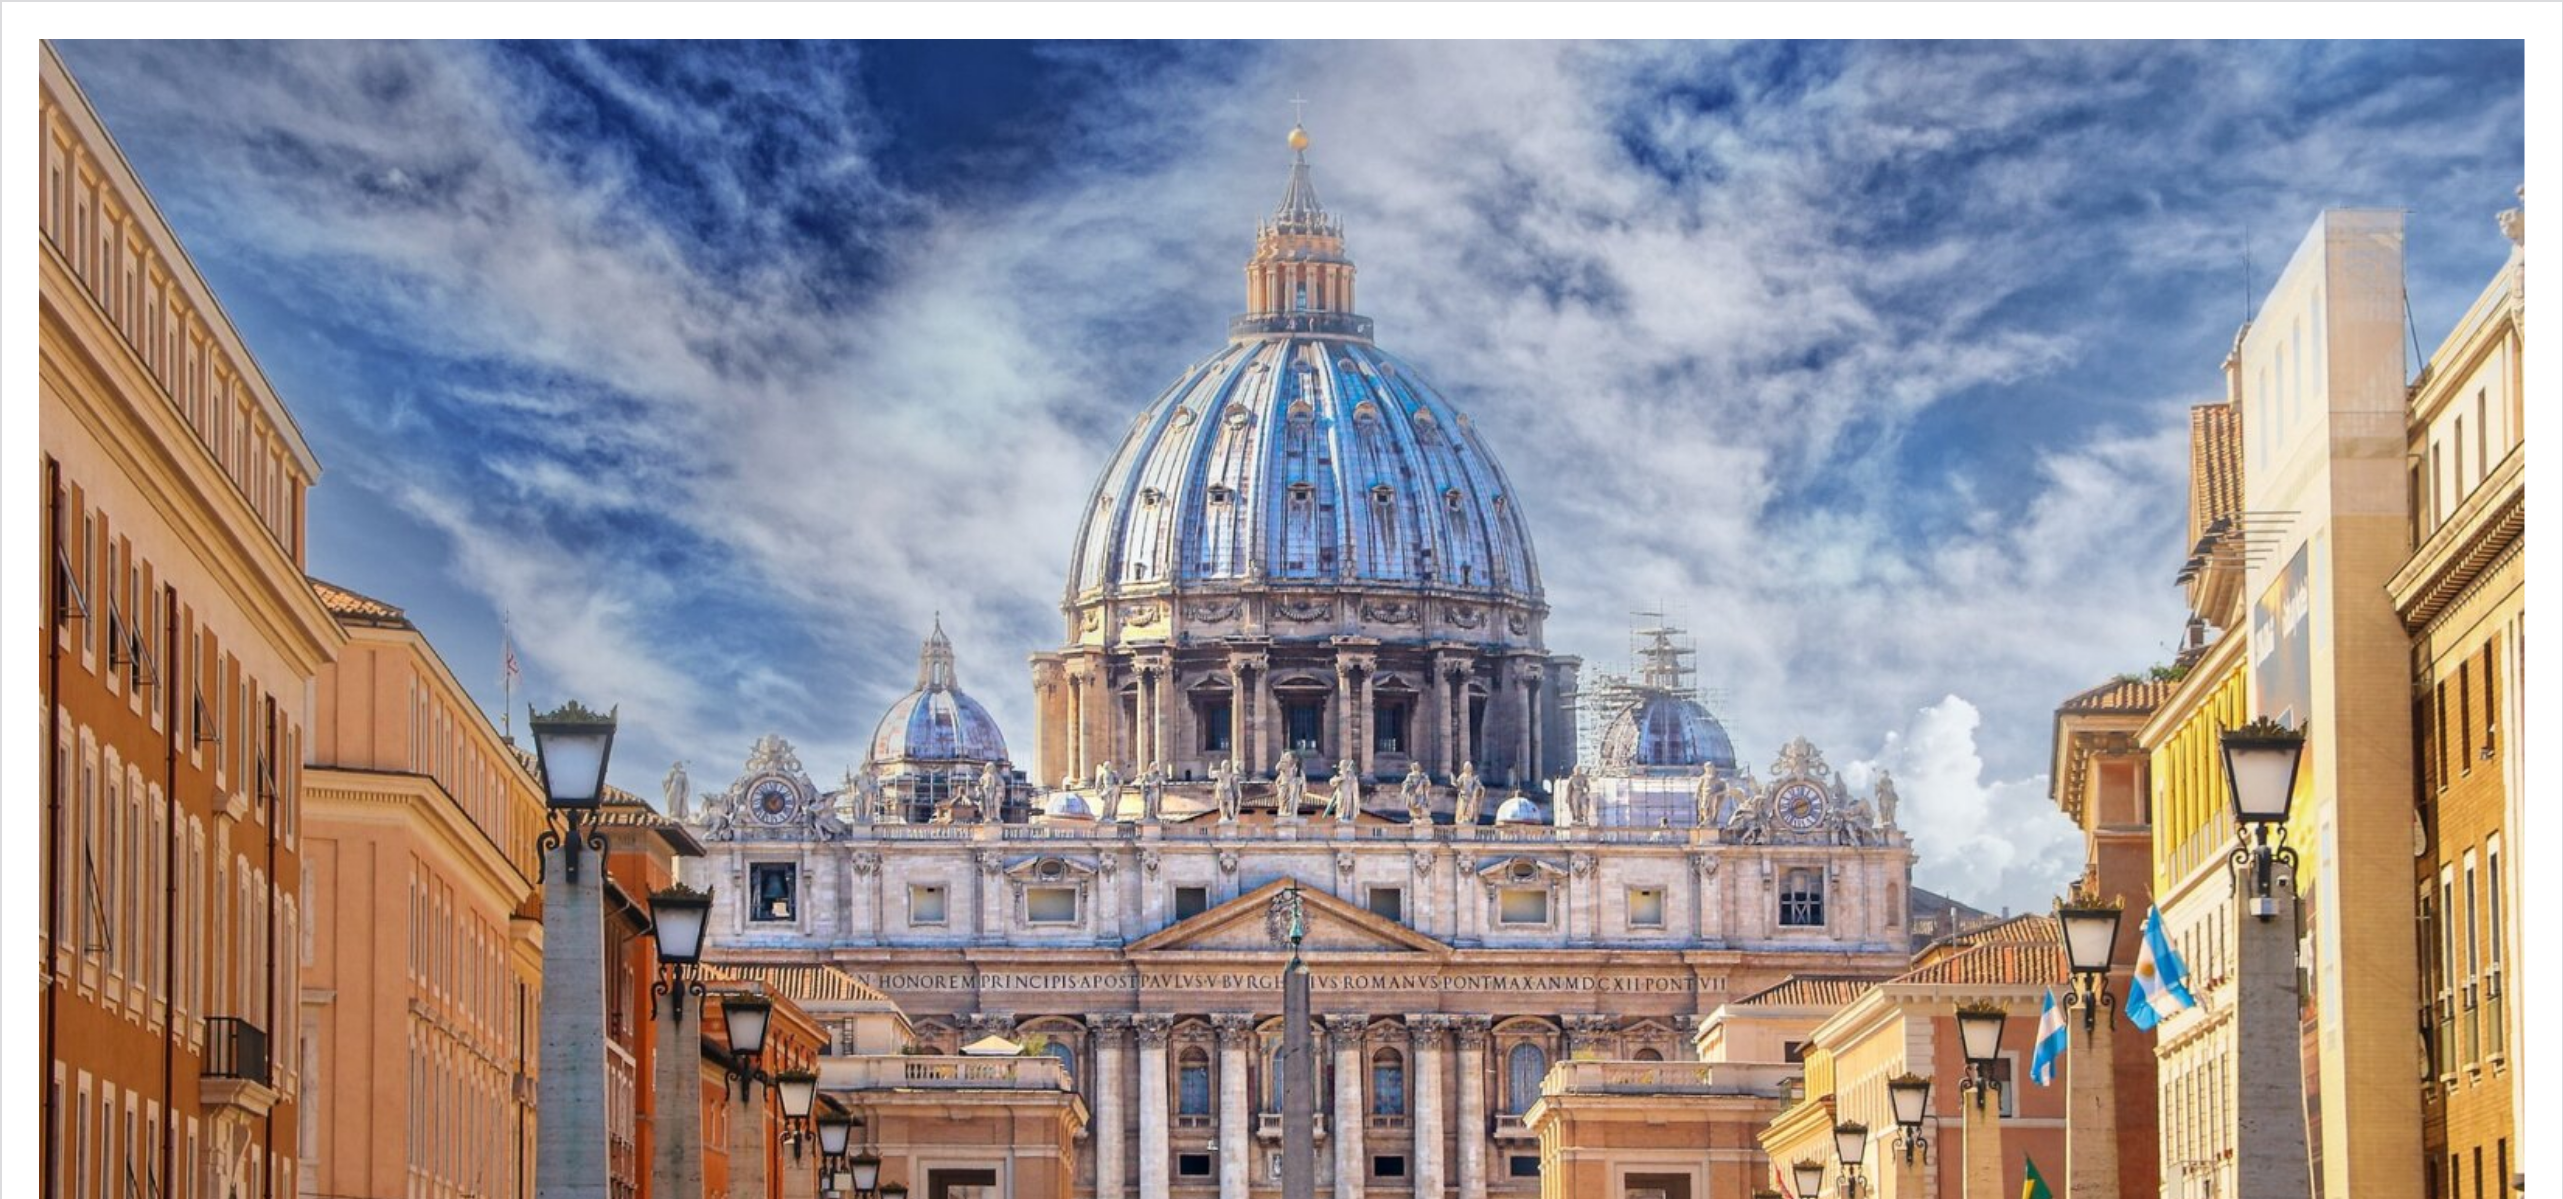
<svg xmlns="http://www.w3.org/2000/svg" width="2563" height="1199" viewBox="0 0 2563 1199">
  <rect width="100%" height="100%" fill="rgb(255,255,255)"/>
  <rect x="1" y="1" width="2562" height="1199" fill="none" stroke="rgb(220,220,222)" stroke-width="2"/>
  <image x="39" y="39" width="2486" height="1160" href="pic1.png"/>
</svg>
